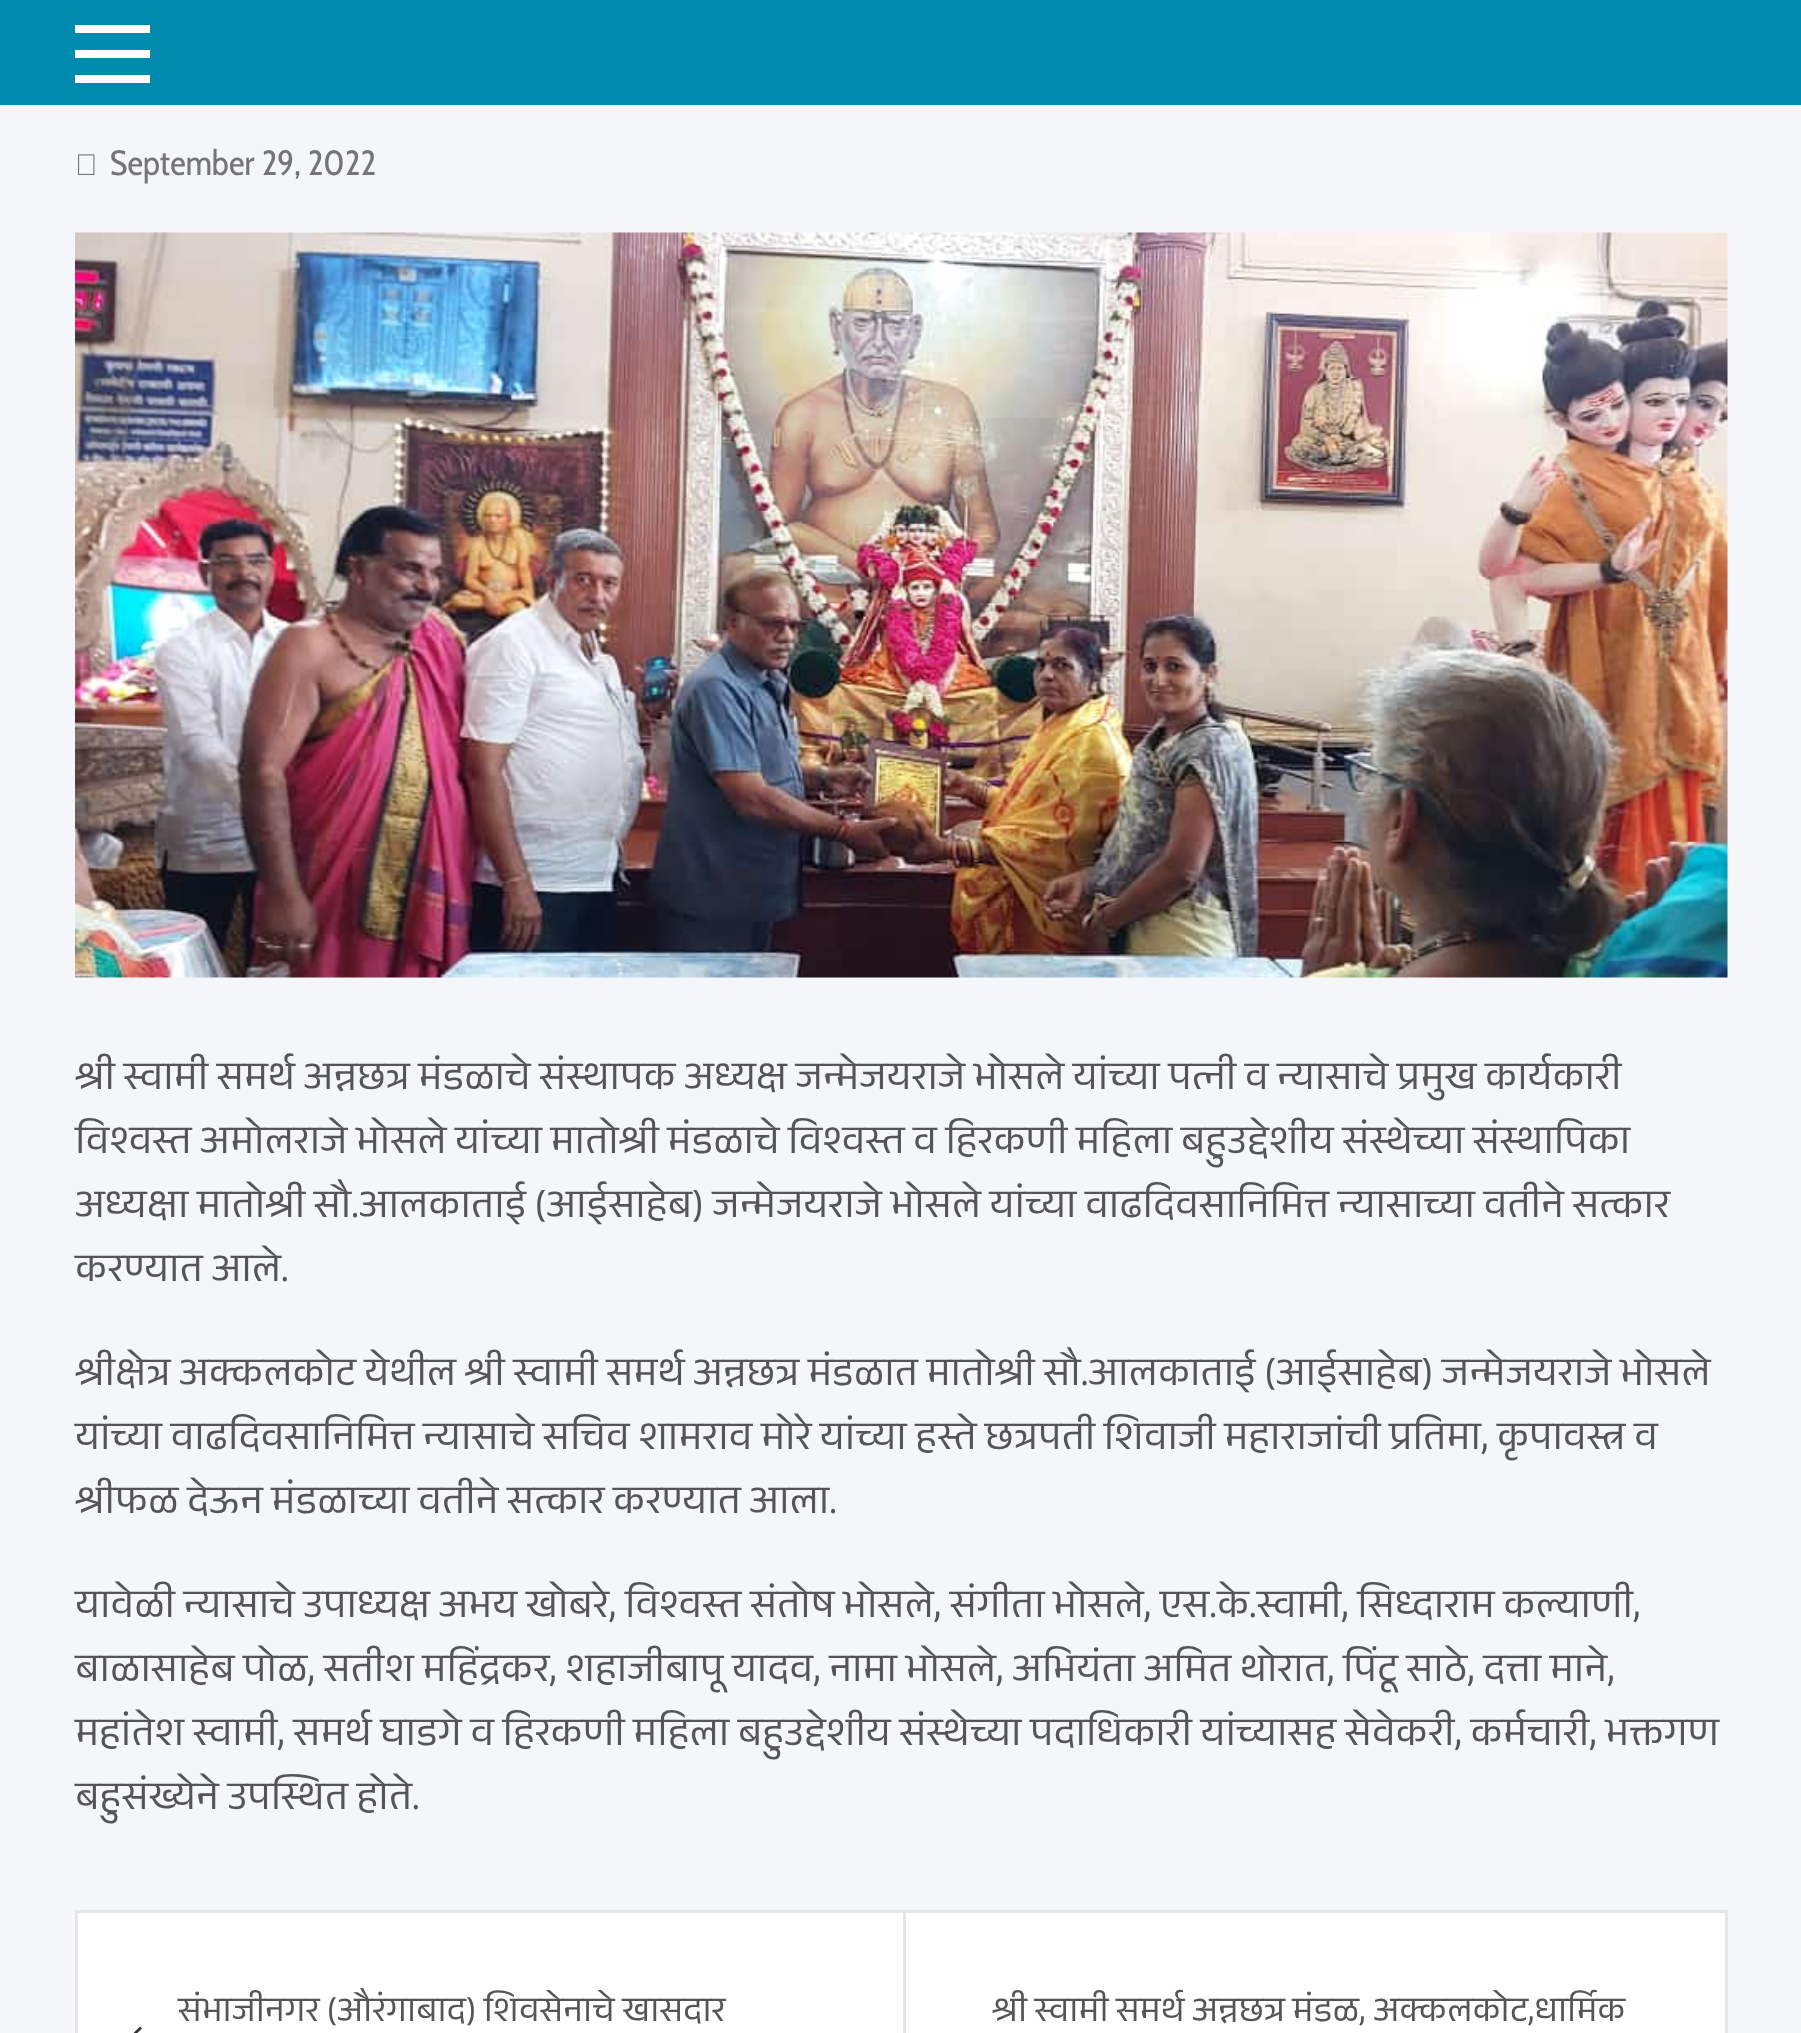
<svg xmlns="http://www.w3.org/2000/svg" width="1801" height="2033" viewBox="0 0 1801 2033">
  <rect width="100%" height="100%" fill="rgb(244,246,249)"/>
  <rect x="0" y="0" width="1801" height="105" fill="rgb(0,138,173)"/>
  <rect x="75" y="25" width="75" height="8" fill="rgb(255,255,255)"/>
  <rect x="75" y="50" width="75" height="8" fill="rgb(255,255,255)"/>
  <rect x="75" y="75" width="75" height="8" fill="rgb(255,255,255)"/>
  <image x="78" y="154" width="17" height="21" href="pic1.png"/>
  <text x="110" y="175" font-family="Cabin Condensed" font-size="35" fill="rgb(117,117,118)">September 29, 2022</text>
  <image x="75" y="232" width="1653" height="746" href="pic2.png"/>
  <g font-family="Anek Devanagari" font-size="40" font-weight="500" fill="rgb(85,85,85)">
    <text>
      <tspan x="75" y="1089">श्री स्वामी समर्थ अन्नछत्र मंडळाचे संस्थापक अध्यक्ष जन्मेजयराजे भोसले यांच्या पत्नी व न्यासाचे प्रमुख कार्यकारी</tspan>
      <tspan x="75" y="1153">विश्वस्त अमोलराजे भोसले यांच्या मातोश्री मंडळाचे विश्वस्त व हिरकणी महिला बहुउद्देशीय संस्थेच्या संस्थापिका</tspan>
      <tspan x="75" y="1217">अध्यक्षा मातोश्री सौ.आलकाताई (आईसाहेब) जन्मेजयराजे भोसले यांच्या वाढदिवसानिमित्त न्यासाच्या वतीने सत्कार</tspan>
      <tspan x="75" y="1281">करण्यात आले.</tspan>
    </text>
    <text>
      <tspan x="75" y="1385">श्रीक्षेत्र अक्कलकोट येथील श्री स्वामी समर्थ अन्नछत्र मंडळात मातोश्री सौ.आलकाताई (आईसाहेब) जन्मेजयराजे भोसले</tspan>
      <tspan x="75" y="1449">यांच्या वाढदिवसानिमित्त न्यासाचे सचिव शामराव मोरे यांच्या हस्ते छत्रपती शिवाजी महाराजांची प्रतिमा, कृपावस्त्र व</tspan>
      <tspan x="75" y="1513">श्रीफळ देऊन मंडळाच्या वतीने सत्कार करण्यात आला.</tspan>
    </text>
    <text>
      <tspan x="75" y="1617">यावेळी न्यासाचे उपाध्यक्ष अभय खोबरे, विश्वस्त संतोष भोसले, संगीता भोसले, एस.के.स्वामी, सिध्दाराम कल्याणी,</tspan>
      <tspan x="75" y="1681">बाळासाहेब पोळ, सतीश महिंद्रकर, शहाजीबापू यादव, नामा भोसले, अभियंता अमित थोरात, पिंटू साठे, दत्ता माने,</tspan>
      <tspan x="75" y="1745">महांतेश स्वामी, समर्थ घाडगे व हिरकणी महिला बहुउद्देशीय संस्थेच्या पदाधिकारी यांच्यासह सेवेकरी, कर्मचारी, भक्तगण</tspan>
      <tspan x="75" y="1809">बहुसंख्येने उपस्थित होते.</tspan>
    </text>
  </g>
  <rect x="76.5" y="1911.5" width="1650" height="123" fill="rgb(255,255,255)" stroke="rgb(230,230,230)" stroke-width="3"/>
  <text x="178" y="2021" font-family="Anek Devanagari" font-size="35" font-weight="500" fill="rgb(85,85,85)">संभाजीनगर (औरंगाबाद) शिवसेनाचे खासदार</text>
  <path d="M140 2026.5L142 2028.5L124 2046L122.5 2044Z" fill="rgb(51,51,51)"/>
  <rect x="903" y="1913" width="3" height="120" fill="rgb(230,230,230)"/>
  <text x="992" y="2021" font-family="Anek Devanagari" font-size="35" font-weight="500" fill="rgb(85,85,85)">श्री स्वामी समर्थ अन्नछत्र मंडळ, अक्कलकोट,धार्मिक</text>
</svg>
